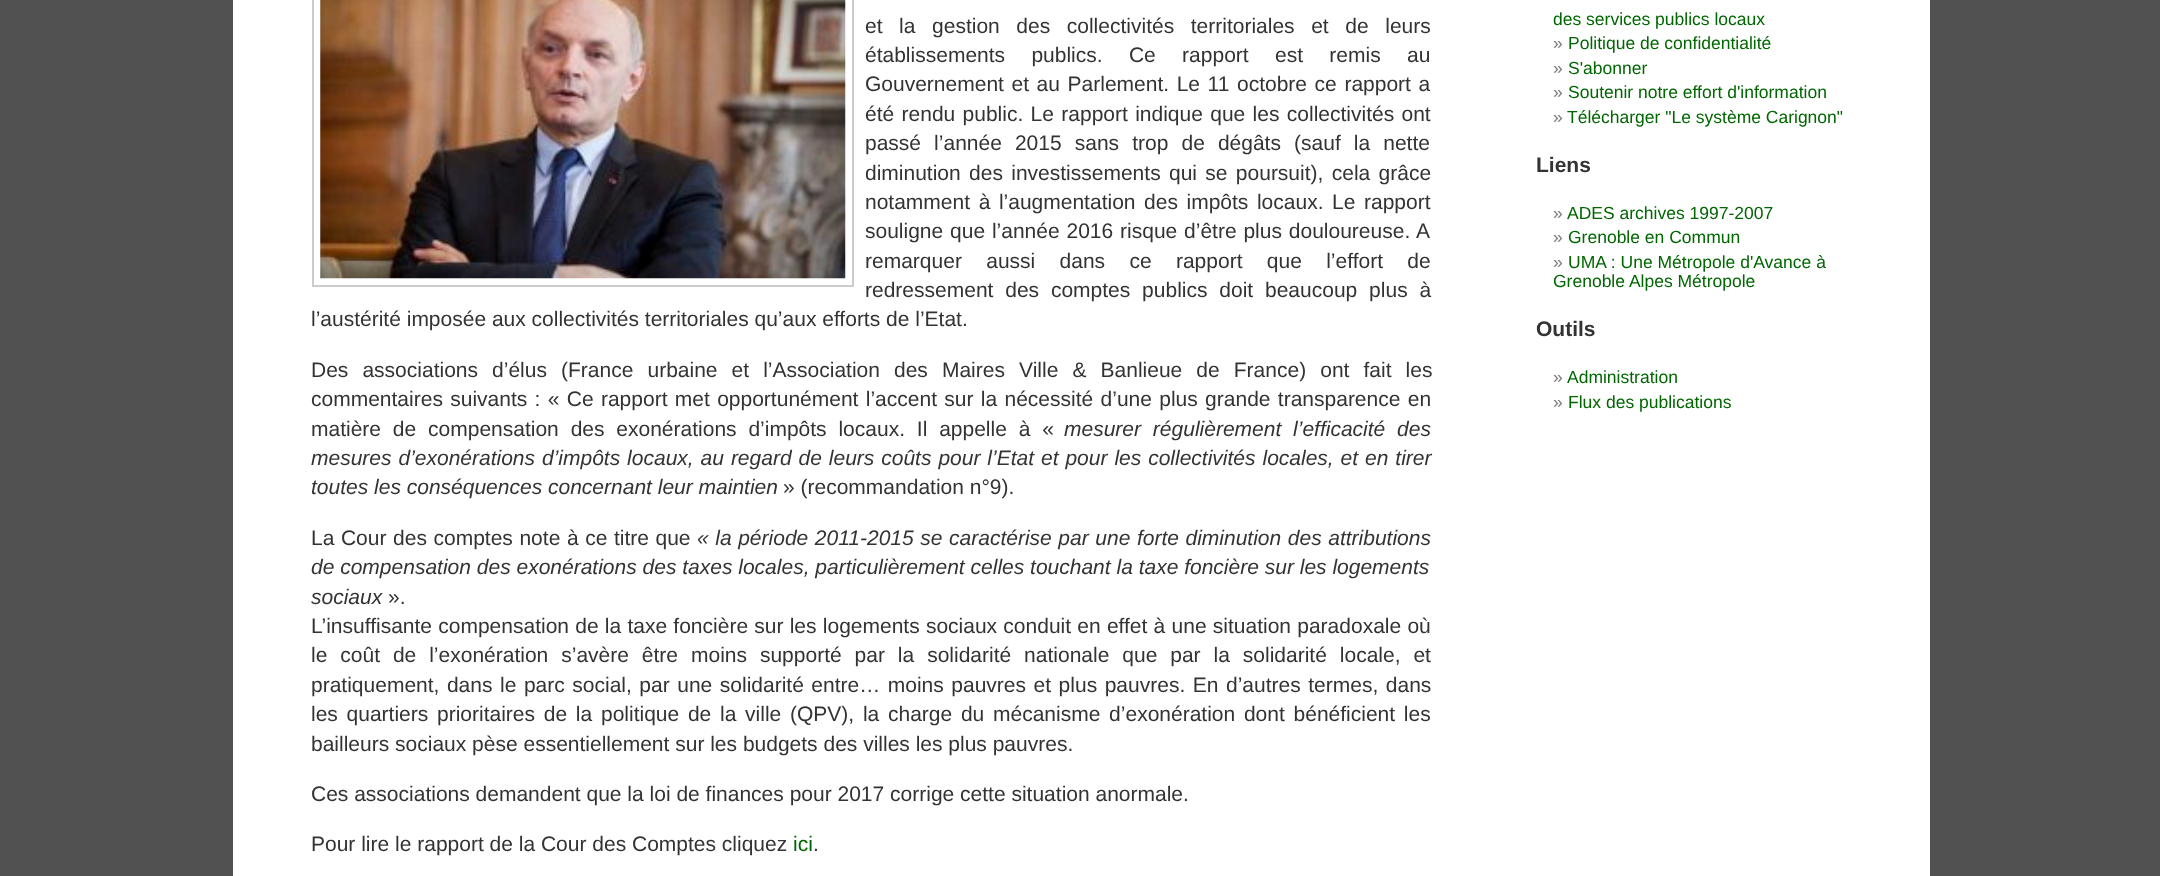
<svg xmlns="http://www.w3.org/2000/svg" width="2160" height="876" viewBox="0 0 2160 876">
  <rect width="100%" height="100%" fill="rgb(81,81,81)"/>
  <rect x="233" y="0" width="1697" height="876" fill="rgb(255,255,255)"/>
  <rect x="313" y="-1" width="540" height="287" fill="none" stroke="rgb(204,204,204)" stroke-width="2"/>
  <image x="320" y="0" width="526" height="279" href="pic1.png"/>
  <g font-family="Liberation Sans" font-size="21" fill="rgb(51,51,51)">
    <text>
      <tspan x="865" y="33" word-spacing="10.75">et la gestion des collectivités territoriales et de leurs</tspan>
      <tspan x="865" y="62" word-spacing="20.5">établissements publics. Ce rapport est remis au</tspan>
      <tspan x="865" y="91" word-spacing="1.75">Gouvernement et au Parlement. Le 11 octobre ce rapport a</tspan>
      <tspan x="865" y="121" word-spacing="1.5">été rendu public. Le rapport indique que les collectivités ont</tspan>
      <tspan x="865" y="150" word-spacing="7.25">passé l’année 2015 sans trop de dégâts (sauf la nette</tspan>
      <tspan x="865" y="180" word-spacing="2.5">diminution des investissements qui se poursuit), cela grâce</tspan>
      <tspan x="865" y="209" word-spacing="2.75">notamment à l’augmentation des impôts locaux. Le rapport</tspan>
      <tspan x="865" y="238" word-spacing="1">souligne que l’année 2016 risque d’être plus douloureuse. A</tspan>
      <tspan x="865" y="268" word-spacing="18.5">remarquer aussi dans ce rapport que l’effort de</tspan>
      <tspan x="865" y="297" word-spacing="6">redressement des comptes publics doit beaucoup plus à</tspan>
    </text>
    <text x="311" y="326">l’austérité imposée aux collectivités territoriales qu’aux efforts de l’Etat.</text>
    <text>
      <tspan x="311" y="377" word-spacing="8.25">Des associations d’élus (France urbaine et l’Association des Maires Ville &amp; Banlieue de France) ont fait les</tspan>
      <tspan x="311" y="406" word-spacing="1.5">commentaires suivants : « Ce rapport met opportunément l’accent sur la nécessité d’une plus grande transparence en</tspan>
      <tspan x="311" y="436" word-spacing="6">matière de compensation des exonérations d’impôts locaux. Il appelle à «</tspan>
    </text>
  </g>
  <g font-family="Liberation Sans" font-size="21" font-style="italic" fill="rgb(51,51,51)">
    <text x="1064" y="436" word-spacing="6">mesurer régulièrement l’efficacité des</text>
    <text>
      <tspan x="311" y="465" word-spacing="1.1">mesures d’exonérations d’impôts locaux, au regard de leurs coûts pour l’Etat et pour les collectivités locales, et en tirer</tspan>
      <tspan x="311" y="494">toutes les conséquences concernant leur maintien</tspan>
    </text>
  </g>
  <g font-family="Liberation Sans" font-size="21" fill="rgb(51,51,51)">
    <text x="783" y="494">» (recommandation n°9).</text>
    <text x="311" y="545" word-spacing="0.75">La Cour des comptes note à ce titre que</text>
  </g>
  <g font-family="Liberation Sans" font-size="21" font-style="italic" fill="rgb(51,51,51)">
    <text x="697" y="545" word-spacing="0.75">« la période 2011-2015 se caractérise par une forte diminution des attributions</text>
    <text>
      <tspan x="311" y="574">de compensation des exonérations des taxes locales, particulièrement celles touchant la taxe foncière sur les logements</tspan>
      <tspan x="311" y="604">sociaux</tspan>
    </text>
  </g>
  <g font-family="Liberation Sans" font-size="21" fill="rgb(51,51,51)">
    <text x="388" y="604">».</text>
    <text>
      <tspan x="311" y="633" word-spacing="0.4">L’insuffisante compensation de la taxe foncière sur les logements sociaux conduit en effet à une situation paradoxale où</tspan>
      <tspan x="311" y="662" word-spacing="7.1">le coût de l’exonération s’avère être moins supporté par la solidarité nationale que par la solidarité locale, et</tspan>
      <tspan x="311" y="692" word-spacing="1.7">pratiquement, dans le parc social, par une solidarité entre… moins pauvres et plus pauvres. En d’autres termes, dans</tspan>
      <tspan x="311" y="721" word-spacing="2.9">les quartiers prioritaires de la politique de la ville (QPV), la charge du mécanisme d’exonération dont bénéficient les</tspan>
      <tspan x="311" y="751">bailleurs sociaux pèse essentiellement sur les budgets des villes les plus pauvres.</tspan>
    </text>
    <text x="311" y="801">Ces associations demandent que la loi de finances pour 2017 corrige cette situation anormale.</text>
    <text x="311" y="851">Pour lire le rapport de la Cour des Comptes cliquez</text>
  </g>
  <text x="793" y="851" font-family="Liberation Sans" font-size="21" fill="rgb(0,102,0)">ici</text>
  <text x="813" y="851" font-family="Liberation Sans" font-size="21" fill="rgb(51,51,51)">.</text>
  <text x="1553" y="25" font-family="Liberation Sans" font-size="17.5" fill="rgb(0,102,0)">des services publics locaux</text>
  <text x="1553" y="49" font-family="Liberation Sans" font-size="17.5" fill="rgb(119,119,119)">»</text>
  <text x="1568" y="49" font-family="Liberation Sans" font-size="17.5" fill="rgb(0,102,0)">Politique de confidentialité</text>
  <text x="1553" y="74" font-family="Liberation Sans" font-size="17.5" fill="rgb(119,119,119)">»</text>
  <text x="1568" y="74" font-family="Liberation Sans" font-size="17.5" fill="rgb(0,102,0)">S'abonner</text>
  <text x="1553" y="98" font-family="Liberation Sans" font-size="17.5" fill="rgb(119,119,119)">»</text>
  <text x="1568" y="98" font-family="Liberation Sans" font-size="17.5" fill="rgb(0,102,0)">Soutenir notre effort d'information</text>
  <text x="1553" y="123" font-family="Liberation Sans" font-size="17.5" fill="rgb(119,119,119)">»</text>
  <text x="1567" y="123" font-family="Liberation Sans" font-size="17.5" fill="rgb(0,102,0)">Télécharger "Le système Carignon"</text>
  <text x="1536" y="172" font-family="Liberation Sans" font-size="21" font-weight="bold" fill="rgb(51,51,51)">Liens</text>
  <text x="1553" y="219" font-family="Liberation Sans" font-size="17.5" fill="rgb(119,119,119)">»</text>
  <text x="1567" y="219" font-family="Liberation Sans" font-size="17.5" fill="rgb(0,102,0)">ADES archives 1997-2007</text>
  <text x="1553" y="243" font-family="Liberation Sans" font-size="17.5" fill="rgb(119,119,119)">»</text>
  <text x="1568" y="243" font-family="Liberation Sans" font-size="17.5" fill="rgb(0,102,0)">Grenoble en Commun</text>
  <text x="1553" y="268" font-family="Liberation Sans" font-size="17.5" fill="rgb(119,119,119)">»</text>
  <g font-family="Liberation Sans" font-size="17.5" fill="rgb(0,102,0)">
    <text x="1568" y="268">UMA : Une Métropole d'Avance à</text>
    <text x="1553" y="287">Grenoble Alpes Métropole</text>
  </g>
  <text x="1536" y="336" font-family="Liberation Sans" font-size="21" font-weight="bold" fill="rgb(51,51,51)">Outils</text>
  <text x="1553" y="383" font-family="Liberation Sans" font-size="17.5" fill="rgb(119,119,119)">»</text>
  <text x="1567" y="383" font-family="Liberation Sans" font-size="17.5" fill="rgb(0,102,0)">Administration</text>
  <text x="1553" y="408" font-family="Liberation Sans" font-size="17.5" fill="rgb(119,119,119)">»</text>
  <text x="1568" y="408" font-family="Liberation Sans" font-size="17.5" fill="rgb(0,102,0)">Flux des publications</text>
</svg>
